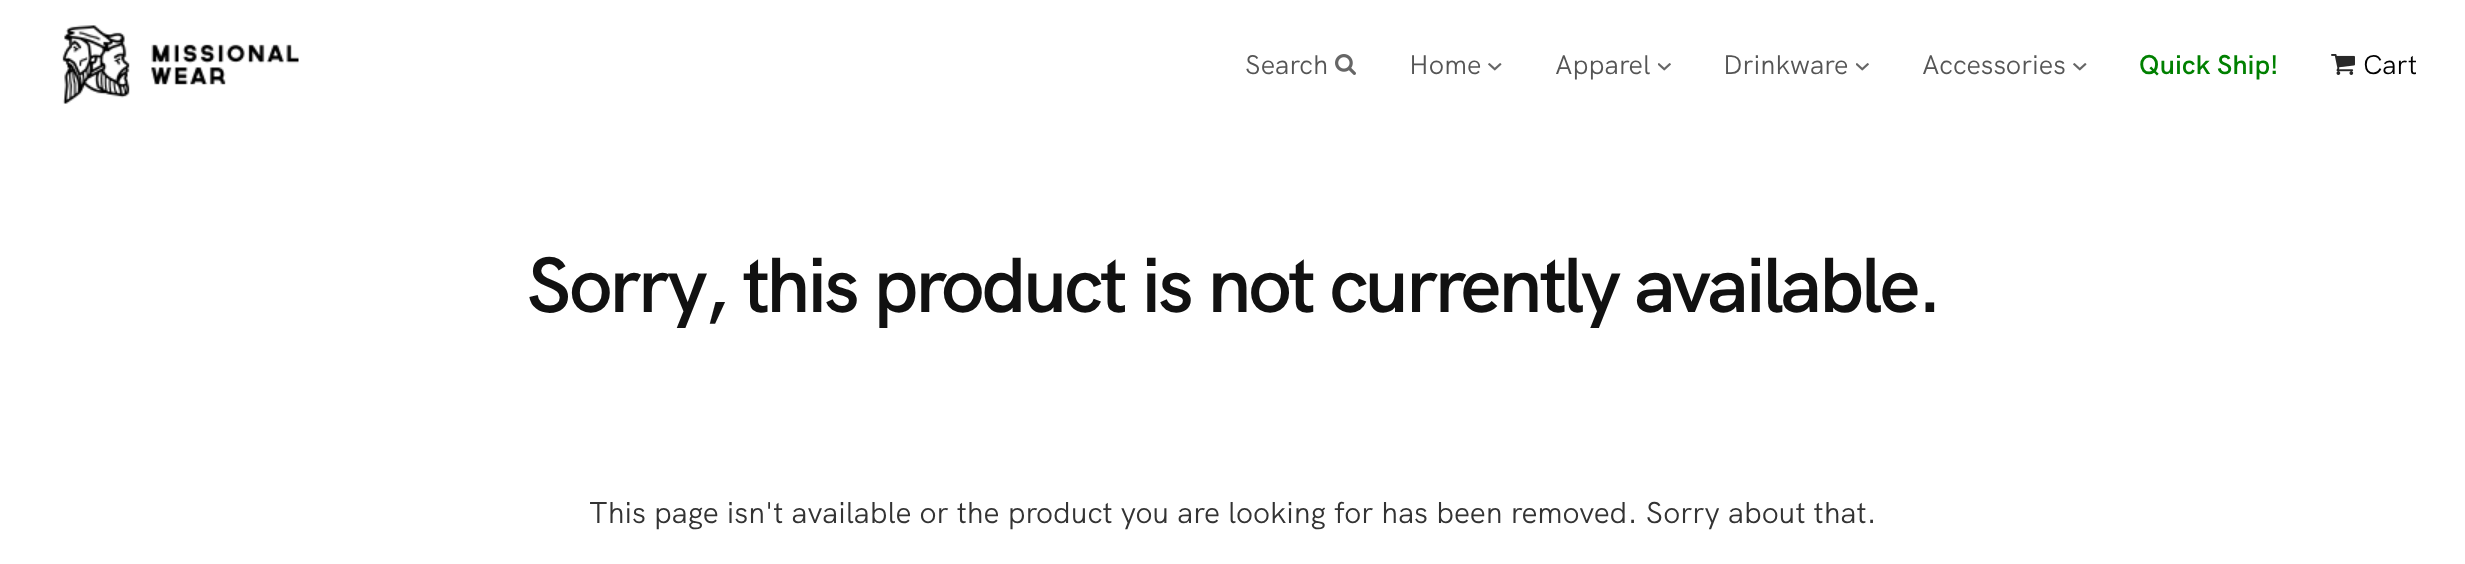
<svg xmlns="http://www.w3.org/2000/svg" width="2465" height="564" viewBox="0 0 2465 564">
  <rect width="100%" height="100%" fill="rgb(255,255,255)"/>
  <image x="62" y="25" width="237" height="79" href="pic1.png"/>
  <text x="1245" y="74" font-family="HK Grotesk" font-size="27" fill="rgb(85,85,85)">Search</text>
  <image x="1335" y="54" width="21" height="21" href="pic2.png"/>
  <text x="1409" y="74" font-family="HK Grotesk" font-size="27" fill="rgb(85,85,85)">Home</text>
  <image x="1488" y="63" width="14" height="8" href="pic3.png"/>
  <text x="1555" y="74" font-family="HK Grotesk" font-size="27" fill="rgb(85,85,85)">Apparel</text>
  <image x="1658" y="63" width="13" height="8" href="pic4.png"/>
  <text x="1723" y="74" font-family="HK Grotesk" font-size="27" fill="rgb(85,85,85)">Drinkware</text>
  <image x="1856" y="63" width="13" height="8" href="pic4.png"/>
  <text x="1922" y="74" font-family="HK Grotesk" font-size="27" fill="rgb(85,85,85)">Accessories</text>
  <image x="2073" y="63" width="14" height="8" href="pic3.png"/>
  <text x="2139" y="74" font-family="HK Grotesk" font-size="27" font-weight="600" fill="rgb(0,128,0)">Quick Ship!</text>
  <image x="2331" y="54" width="24" height="21" href="pic5.png"/>
  <text x="2363" y="74" font-family="HK Grotesk" font-size="27" fill="rgb(0,0,0)">Cart</text>
  <text x="527" y="312" font-family="HK Grotesk" font-size="78" font-weight="600" letter-spacing="-3.1" fill="rgb(17,17,17)">Sorry, this product is not currently available.</text>
  <text x="589" y="523" font-family="HK Grotesk" font-size="30" letter-spacing="-0.05" fill="rgb(51,51,51)">This page isn't available or the product you are looking for has been removed. Sorry about that.</text>
</svg>
